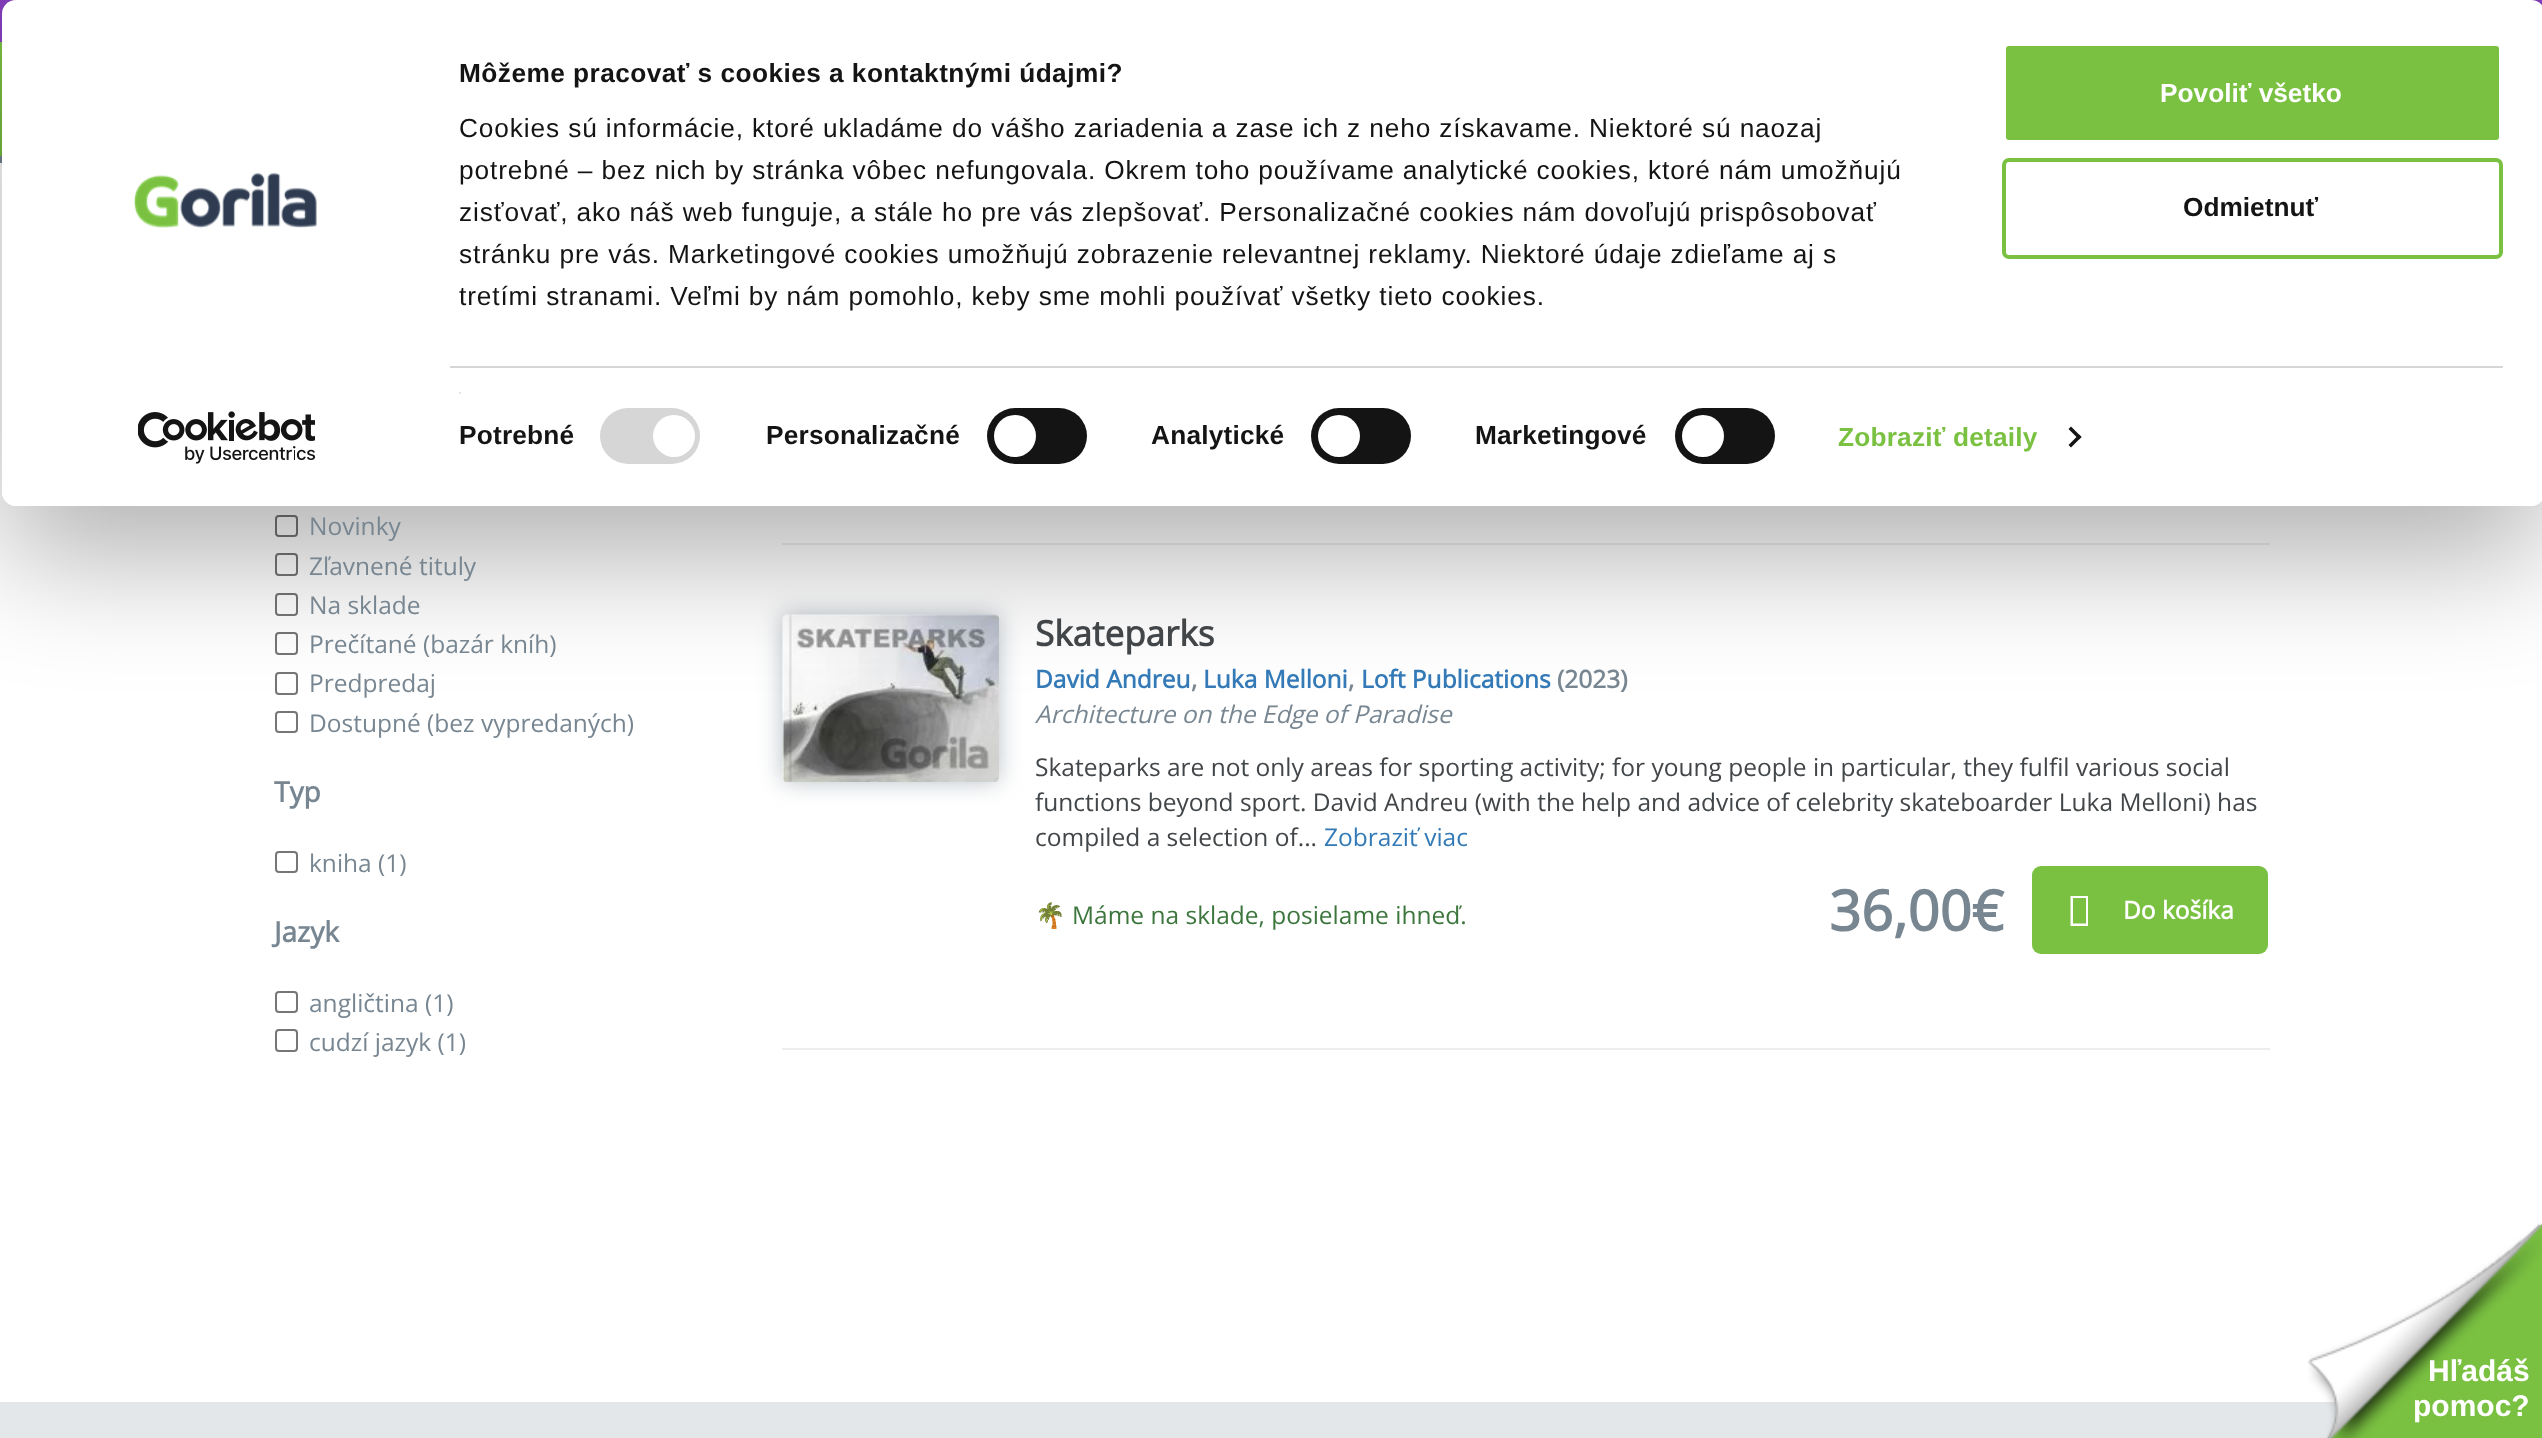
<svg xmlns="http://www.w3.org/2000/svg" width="2542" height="1438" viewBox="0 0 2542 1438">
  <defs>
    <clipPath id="clip1"><path d="M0 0H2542V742H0ZM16 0H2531C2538.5 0 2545 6.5 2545 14V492C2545 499.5 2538.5 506 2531 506H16C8.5 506 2 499.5 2 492V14C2 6.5 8.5 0 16 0Z" clip-rule="evenodd"/></clipPath>
  </defs>
  <rect width="100%" height="100%" fill="rgb(255,255,255)"/>
  <rect x="0" y="0" width="2542" height="42" fill="rgb(132,61,188)"/>
  <rect x="0" y="42" width="2" height="114" fill="rgb(122,193,66)"/>
  <rect x="0" y="156" width="2" height="7" fill="rgb(119,134,145)"/>
  <rect x="276" y="516" width="21" height="20" rx="3" fill="none" stroke="rgb(118,118,118)" stroke-width="2"/>
  <rect x="276" y="554" width="21" height="21" rx="3" fill="none" stroke="rgb(118,118,118)" stroke-width="2"/>
  <rect x="276" y="594" width="21" height="21" rx="3" fill="none" stroke="rgb(118,118,118)" stroke-width="2"/>
  <rect x="276" y="633" width="21" height="21" rx="3" fill="none" stroke="rgb(118,118,118)" stroke-width="2"/>
  <rect x="276" y="673" width="21" height="21" rx="3" fill="none" stroke="rgb(118,118,118)" stroke-width="2"/>
  <rect x="276" y="712" width="21" height="20" rx="3" fill="none" stroke="rgb(118,118,118)" stroke-width="2"/>
  <rect x="782" y="543" width="1488" height="2" fill="rgb(238,238,238)"/>
  <rect x="782" y="614" width="217" height="168" rx="5" fill="rgba(119,134,145,0.5)" filter="blur(11.5px)"/>
  <image x="782" y="614" width="217" height="168" href="pic3.png"/>
  <g clip-path="url(#clip1)">
    <rect x="2" y="53" width="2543" height="505" rx="14" fill="rgba(0,0,0,0.3)" filter="blur(61px)"/>
  </g>
  <rect x="2" y="0" width="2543" height="506" rx="14" fill="rgb(255,255,255)"/>
  <text x="459" y="82" font-family="Liberation Sans" font-size="26.25" font-weight="bold" letter-spacing="0.45" fill="rgb(20,20,20)">Môžeme pracovať s cookies a kontaktnými údajmi?</text>
  <g font-family="Liberation Sans" font-size="26.25" letter-spacing="0.88" fill="rgb(20,20,20)">
    <text>
      <tspan x="459" y="137">Cookies sú informácie, ktoré ukladáme do vášho zariadenia a zase ich z neho získavame. Niektoré sú naozaj</tspan>
      <tspan x="459" y="179">potrebné – bez nich by stránka vôbec nefungovala. Okrem toho používame analytické cookies, ktoré nám umožňujú</tspan>
      <tspan x="459" y="221">zisťovať, ako náš web funguje, a stále ho pre vás zlepšovať. Personalizačné cookies nám dovoľujú prispôsobovať</tspan>
      <tspan x="459" y="263">stránku pre vás. Marketingové cookies umožňujú zobrazenie relevantnej reklamy. Niektoré údaje zdieľame aj s</tspan>
      <tspan x="459" y="305">tretími stranami. Veľmi by nám pomohlo, keby sme mohli používať všetky tieto cookies.</tspan>
    </text>
  </g>
  <rect x="450" y="366" width="2053" height="2" fill="rgb(214,214,214)"/>
  <rect x="459" y="392" width="2" height="2" fill="rgb(229,229,229)"/>
  <text x="459" y="444" font-family="Liberation Sans" font-size="26.25" font-weight="bold" letter-spacing="0.2" fill="rgb(20,20,20)">Potrebné</text>
  <rect x="600" y="408" width="100" height="56" rx="28" fill="rgb(214,214,214)"/>
  <circle cx="674" cy="436" r="21" fill="rgb(255,255,255)"/>
  <text x="766" y="444" font-family="Liberation Sans" font-size="26.25" font-weight="bold" letter-spacing="0.2" fill="rgb(20,20,20)">Personalizačné</text>
  <rect x="987" y="408" width="100" height="56" rx="28" fill="rgb(20,20,20)"/>
  <circle cx="1015" cy="436" r="21" fill="rgb(255,255,255)"/>
  <text x="1151" y="444" font-family="Liberation Sans" font-size="26.25" font-weight="bold" letter-spacing="0.2" fill="rgb(20,20,20)">Analytické</text>
  <rect x="1311" y="408" width="100" height="56" rx="28" fill="rgb(20,20,20)"/>
  <circle cx="1339" cy="436" r="21" fill="rgb(255,255,255)"/>
  <text x="1475" y="444" font-family="Liberation Sans" font-size="26.25" font-weight="bold" letter-spacing="0.2" fill="rgb(20,20,20)">Marketingové</text>
  <rect x="1675" y="408" width="100" height="56" rx="28" fill="rgb(20,20,20)"/>
  <circle cx="1703" cy="436" r="21" fill="rgb(255,255,255)"/>
  <text x="1838" y="446" font-family="Liberation Sans" font-size="26.25" font-weight="bold" letter-spacing="0.2" fill="rgb(122,193,66)">Zobraziť detaily</text>
  <path d="M2071 426.5L2081.5 437L2079 439.5L2068.5 429Z" fill="rgb(20,20,20)"/>
  <path d="M2079 434.5L2081.5 437L2071 447.5L2068.5 445Z" fill="rgb(20,20,20)"/>
  <rect x="2004" y="44" width="497" height="98" rx="5" fill="rgb(122,193,66)" stroke="rgb(255,255,255)" stroke-width="4"/>
  <text x="2160" y="102" font-family="Liberation Sans" font-size="26.25" font-weight="bold" fill="rgb(255,255,255)">Povoliť všetko</text>
  <rect x="2004" y="160" width="497" height="97" rx="5" fill="none" stroke="rgb(122,193,66)" stroke-width="4"/>
  <text x="2183" y="216" font-family="Liberation Sans" font-size="26.25" font-weight="bold" fill="rgb(20,20,20)">Odmietnuť</text>
  <image x="133" y="173" width="184" height="55" href="pic1.png"/>
  <image x="138" y="411" width="177" height="53" href="pic2.png"/>
  <g font-family="Open Sans" font-size="24.5" fill="rgb(119,134,145)">
    <text>
      <tspan x="309" y="535">Novinky</tspan>
      <tspan x="309" y="575">Zľavnené tituly</tspan>
      <tspan x="309" y="614">Na sklade</tspan>
      <tspan x="309" y="653">Prečítané (bazár kníh)</tspan>
      <tspan x="309" y="692">Predpredaj</tspan>
      <tspan x="309" y="732">Dostupné (bez vypredaných)</tspan>
    </text>
  </g>
  <text x="274" y="802" font-family="Open Sans" font-size="28" font-weight="bold" fill="rgb(119,134,145)">Typ</text>
  <rect x="276" y="852" width="21" height="20" rx="3" fill="none" stroke="rgb(118,118,118)" stroke-width="2"/>
  <text x="309" y="872" font-family="Open Sans" font-size="24.5" fill="rgb(119,134,145)">kniha (1)</text>
  <text x="274" y="942" font-family="Open Sans" font-size="28" font-weight="bold" fill="rgb(119,134,145)">Jazyk</text>
  <rect x="276" y="992" width="21" height="20" rx="3" fill="none" stroke="rgb(118,118,118)" stroke-width="2"/>
  <text x="309" y="1012" font-family="Open Sans" font-size="24.5" fill="rgb(119,134,145)">angličtina (1)</text>
  <rect x="276" y="1030" width="21" height="21" rx="3" fill="none" stroke="rgb(118,118,118)" stroke-width="2"/>
  <text x="309" y="1051" font-family="Open Sans" font-size="24.5" fill="rgb(119,134,145)">cudzí jazyk (1)</text>
  <text x="1035" y="646" font-family="Open Sans" font-size="35" font-weight="bold" fill="rgb(66,70,73)">Skateparks</text>
  <text x="1035" y="688" font-family="Open Sans" font-size="24.5" font-weight="bold" fill="rgb(51,122,183)">David Andreu</text>
  <text x="1191" y="688" font-family="Open Sans" font-size="24.5" font-weight="bold" fill="rgb(119,134,145)">,</text>
  <text x="1203" y="688" font-family="Open Sans" font-size="24.5" font-weight="bold" fill="rgb(51,122,183)">Luka Melloni</text>
  <text x="1348" y="688" font-family="Open Sans" font-size="24.5" font-weight="bold" fill="rgb(119,134,145)">,</text>
  <text x="1361" y="688" font-family="Open Sans" font-size="24.5" font-weight="bold" fill="rgb(51,122,183)">Loft Publications</text>
  <text x="1557" y="688" font-family="Open Sans" font-size="24.5" font-weight="bold" fill="rgb(119,134,145)">(2023)</text>
  <text x="1035" y="723" font-family="Open Sans" font-size="24.5" font-style="italic" fill="rgb(119,134,145)">Architecture on the Edge of Paradise</text>
  <g font-family="Open Sans" font-size="24.5" fill="rgb(66,70,73)">
    <text>
      <tspan x="1035" y="776">Skateparks are not only areas for sporting activity; for young people in particular, they fulfil various social</tspan>
      <tspan x="1035" y="811">functions beyond sport. David Andreu (with the help and advice of celebrity skateboarder Luka Melloni) has</tspan>
      <tspan x="1035" y="846">compiled a selection of...</tspan>
    </text>
  </g>
  <text x="1324" y="846" font-family="Open Sans" font-size="24.5" fill="rgb(51,122,183)">Zobraziť viac</text>
  <text x="1035" y="924" font-family="Noto Color Emoji" font-size="24.5" fill="rgb(60,118,61)">🌴</text>
  <text x="1072" y="924" font-family="Open Sans" font-size="24.5" fill="rgb(60,118,61)">Máme na sklade, posielame ihneď.</text>
  <text x="1829" y="931" font-family="Open Sans" font-size="56" font-weight="bold" fill="rgb(119,134,145)">36,00€</text>
  <rect x="2032" y="866" width="236" height="88" rx="9" fill="rgb(122,193,66)"/>
  <path d="M2070.5 926V896H2088V926ZM2073 923.5H2086V898H2073Z" fill="rgb(255,255,255)"/>
  <text x="2123" y="919" font-family="Open Sans" font-size="24.5" font-weight="bold" fill="rgb(255,255,255)">Do košíka</text>
  <rect x="782" y="1048" width="1488" height="2" fill="rgb(238,238,238)"/>
  <rect x="0" y="1402" width="2337" height="36" fill="rgb(228,231,233)"/>
  <path d="M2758 1438H2328L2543 1223Z" fill="rgb(122,193,66)"/>
  <image x="2308" y="1223" width="234" height="215" href="pic4.png"/>
  <g font-family="Liberation Sans" font-size="30" font-weight="bold" fill="rgb(255,255,255)">
    <text x="2428" y="1381">Hľadáš</text>
    <text x="2413" y="1416">pomoc?</text>
  </g>
</svg>
